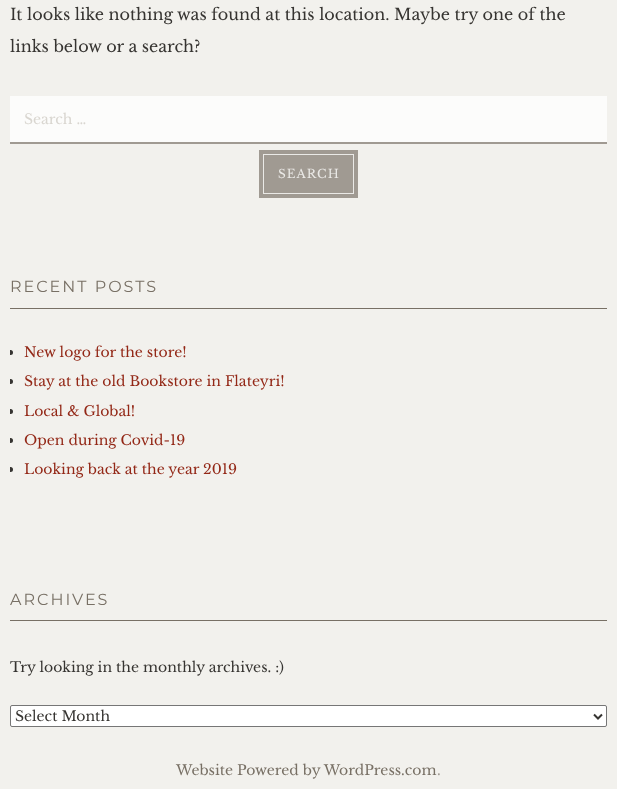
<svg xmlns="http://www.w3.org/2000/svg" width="617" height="789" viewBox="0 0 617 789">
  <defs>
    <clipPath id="clip1"><rect x="10" y="210" width="597" height="292"/></clipPath>
  </defs>
  <rect width="100%" height="100%" fill="rgb(242,241,237)"/>
  <g font-family="Libre Baskerville" font-size="16" fill="rgb(54,52,49)">
    <text x="10" y="20">It looks like nothing was found at this location. Maybe try one of the</text>
    <text x="10" y="52">links below or a search?</text>
  </g>
  <rect x="10" y="96" width="597" height="46" fill="rgb(252,252,251)"/>
  <rect x="10" y="142" width="597" height="2" fill="rgb(160,154,146)"/>
  <text x="24" y="124" font-family="Libre Baskerville" font-size="14" fill="rgb(217,214,208)">Search …</text>
  <rect x="263.5" y="154.5" width="90" height="39" fill="rgb(160,154,146)" stroke="rgb(234,233,230)"/>
  <rect x="261" y="152" width="95" height="44" fill="none" stroke="rgb(160,154,146)" stroke-width="4"/>
  <text x="278" y="178" font-family="Libre Baskerville" font-size="12" letter-spacing="1" fill="rgb(234,233,230)">SEARCH</text>
  <rect x="10" y="308" width="597" height="1" fill="rgb(120,112,101)"/>
  <text x="10" y="292" font-family="Montserrat" font-size="16" font-weight="100" letter-spacing="2" fill="rgb(120,112,101)">RECENT POSTS</text>
  <g clip-path="url(#clip1)">
    <circle cx="10.5" cy="352.5" r="2.5" fill="rgb(54,52,49)"/>
  </g>
  <text x="24" y="357" font-family="Libre Baskerville" font-size="14" fill="rgb(147,40,23)">New logo for the store!</text>
  <g clip-path="url(#clip1)">
    <circle cx="10.5" cy="381.5" r="2.5" fill="rgb(54,52,49)"/>
  </g>
  <text x="24" y="386" font-family="Libre Baskerville" font-size="14" fill="rgb(147,40,23)">Stay at the old Bookstore in Flateyri!</text>
  <g clip-path="url(#clip1)">
    <circle cx="10.5" cy="411.5" r="2.5" fill="rgb(54,52,49)"/>
  </g>
  <text x="24" y="416" font-family="Libre Baskerville" font-size="14" fill="rgb(147,40,23)">Local &amp; Global!</text>
  <g clip-path="url(#clip1)">
    <circle cx="10.5" cy="440.5" r="2.5" fill="rgb(54,52,49)"/>
  </g>
  <text x="24" y="445" font-family="Libre Baskerville" font-size="14" fill="rgb(147,40,23)">Open during Covid-19</text>
  <g clip-path="url(#clip1)">
    <circle cx="10.5" cy="469.5" r="2.5" fill="rgb(54,52,49)"/>
  </g>
  <text x="24" y="474" font-family="Libre Baskerville" font-size="14" fill="rgb(147,40,23)">Looking back at the year 2019</text>
  <rect x="10" y="620" width="597" height="1" fill="rgb(120,112,101)"/>
  <text x="10" y="605" font-family="Montserrat" font-size="16" font-weight="100" letter-spacing="2" fill="rgb(120,112,101)">ARCHIVES</text>
  <text x="10" y="672" font-family="Libre Baskerville" font-size="14" fill="rgb(54,52,49)">Try looking in the monthly archives. :)</text>
  <rect x="10.5" y="705.5" width="596" height="21" rx="1.5" fill="rgb(255,255,255)" stroke="rgb(118,118,118)"/>
  <path d="M594 714.5L598 718.5L602 714.5" fill="none" stroke="rgb(54,52,49)" stroke-width="2"/>
  <text x="15" y="721" font-family="Libre Baskerville" font-size="14" fill="rgb(54,52,49)">Select Month</text>
  <text x="176" y="775" font-family="Libre Baskerville" font-size="14" fill="rgb(120,112,101)">Website Powered by WordPress.com</text>
  <text x="437" y="775" font-family="Libre Baskerville" font-size="14" fill="rgb(160,154,146)">.</text>
</svg>
